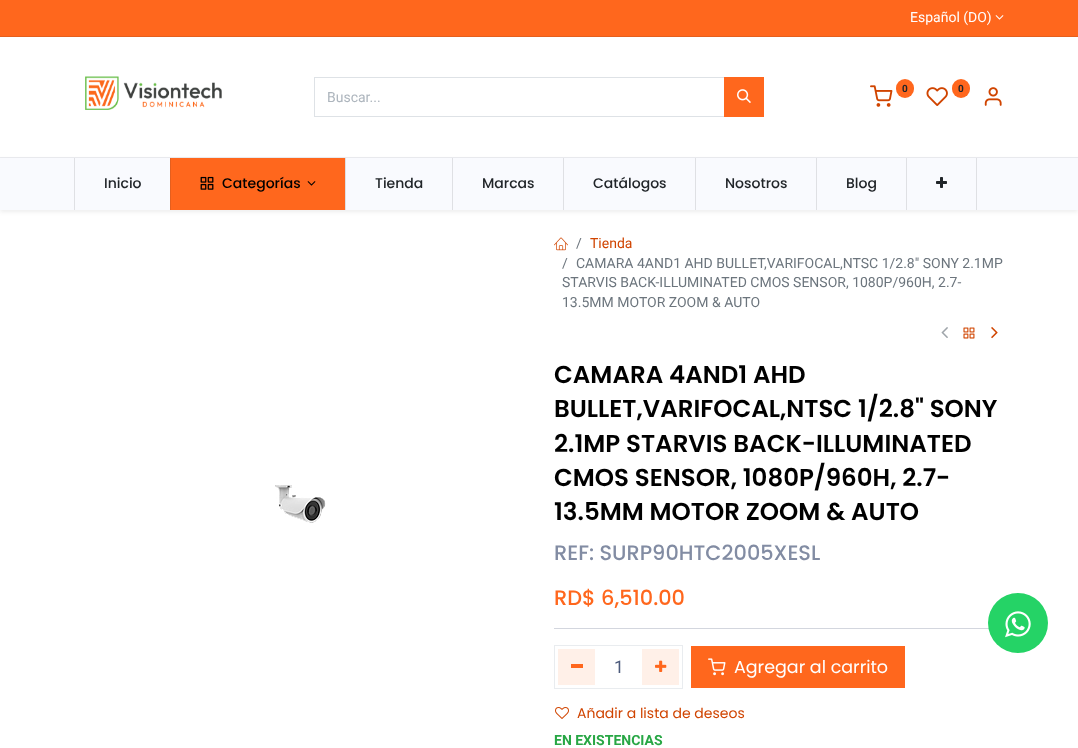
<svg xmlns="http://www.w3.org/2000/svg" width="1078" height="748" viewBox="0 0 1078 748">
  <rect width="100%" height="100%" fill="rgb(255,255,255)"/>
  <rect x="0" y="0" width="1078" height="36" fill="rgb(255,103,29)"/>
  <rect x="0" y="36" width="1078" height="1" fill="rgb(228,95,30)"/>
  <text x="910" y="22" font-family="Roboto" font-size="14" fill="rgb(255,255,255)">Español (DO)</text>
  <image x="995" y="15" width="9" height="5" href="pic1.png"/>
  <rect x="0" y="157" width="1078" height="1" fill="rgb(234,235,239)"/>
  <image x="85" y="76" width="137" height="34" href="pic2.png"/>
  <image x="870" y="85" width="23" height="22" href="pic3.png"/>
  <rect x="896" y="79" width="18" height="19" rx="9" fill="rgb(255,103,29)"/>
  <text x="902" y="92" font-family="Roboto" font-size="10" font-weight="bold" fill="rgb(33,37,41)">0</text>
  <image x="926" y="87" width="22" height="19" href="pic4.png"/>
  <rect x="952" y="79" width="18" height="19" rx="9" fill="rgb(255,103,29)"/>
  <text x="958" y="92" font-family="Roboto" font-size="10" font-weight="bold" fill="rgb(33,37,41)">0</text>
  <image x="984" y="87" width="18" height="19" href="pic5.png"/>
  <rect x="314.5" y="77.5" width="410" height="39" fill="none" stroke="rgb(222,226,230)"/>
  <text x="327" y="102" font-family="Roboto" font-size="14" fill="rgb(173,181,189)">Buscar...</text>
  <rect x="724" y="77" width="40" height="40" fill="rgb(255,103,29)"/>
  <image x="737" y="89" width="14" height="14" href="pic6.png"/>
  <rect x="0" y="160" width="1078" height="52" fill="rgba(0,0,0,0.07)" filter="blur(2px)"/>
  <rect x="0" y="158" width="1078" height="52" fill="rgb(249,250,254)"/>
  <rect x="74" y="158" width="1" height="52" fill="rgb(223,224,228)"/>
  <text x="104" y="188" font-family="Poppins" font-size="14" font-weight="500" fill="rgb(33,37,41)">Inicio</text>
  <rect x="171" y="158" width="174" height="52" fill="rgb(255,103,29)"/>
  <rect x="170" y="158" width="1" height="52" fill="rgb(228,95,30)"/>
  <image x="200" y="176" width="14" height="14" href="pic7.png"/>
  <text x="222" y="188" font-family="Poppins" font-size="14" font-weight="500" fill="rgb(0,0,0)">Categorías</text>
  <image x="307" y="181" width="9" height="5" href="pic8.png"/>
  <rect x="345" y="158" width="1" height="52" fill="rgb(223,224,228)"/>
  <text x="375" y="188" font-family="Poppins" font-size="14" font-weight="500" fill="rgb(33,37,41)">Tienda</text>
  <rect x="452" y="158" width="1" height="52" fill="rgb(223,224,228)"/>
  <text x="482" y="188" font-family="Poppins" font-size="14" font-weight="500" fill="rgb(33,37,41)">Marcas</text>
  <rect x="563" y="158" width="1" height="52" fill="rgb(223,224,228)"/>
  <text x="593" y="188" font-family="Poppins" font-size="14" font-weight="500" fill="rgb(33,37,41)">Catálogos</text>
  <rect x="695" y="158" width="1" height="52" fill="rgb(223,224,228)"/>
  <text x="725" y="188" font-family="Poppins" font-size="14" font-weight="500" fill="rgb(33,37,41)">Nosotros</text>
  <rect x="816" y="158" width="1" height="52" fill="rgb(223,224,228)"/>
  <text x="846" y="188" font-family="Poppins" font-size="14" font-weight="500" fill="rgb(33,37,41)">Blog</text>
  <rect x="976" y="158" width="1" height="52" fill="rgb(223,224,228)"/>
  <rect x="906" y="158" width="1" height="52" fill="rgb(223,224,228)"/>
  <image x="936" y="177" width="11" height="11" href="pic9.png"/>
  <image x="275" y="485" width="51" height="38" href="pic10.png"/>
  <image x="554" y="237" width="14" height="14" href="pic11.png"/>
  <text x="576" y="248" font-family="Roboto" font-size="14" fill="rgb(108,117,125)">/</text>
  <text x="590" y="248" font-family="Roboto" font-size="14" fill="rgb(208,68,0)">Tienda</text>
  <g font-family="Roboto" font-size="14" fill="rgb(108,117,125)">
    <text x="562" y="268">/</text>
    <text x="576" y="268">CAMARA 4AND1 AHD BULLET,VARIFOCAL,NTSC 1/2.8" SONY 2.1MP</text>
    <text>
      <tspan x="562" y="287">STARVIS BACK-ILLUMINATED CMOS SENSOR, 1080P/960H, 2.7-</tspan>
      <tspan x="562" y="307">13.5MM MOTOR ZOOM &amp; AUTO</tspan>
    </text>
  </g>
  <image x="941" y="327" width="7" height="11" href="pic12.png"/>
  <image x="963" y="327" width="12" height="12" href="pic13.png"/>
  <image x="991" y="327" width="7" height="12" href="pic14.png"/>
  <g font-family="Poppins" font-size="24.5" font-weight="600" fill="rgb(0,0,0)">
    <text>
      <tspan x="554" y="383">CAMARA 4AND1 AHD</tspan>
      <tspan x="554" y="417">BULLET,VARIFOCAL,NTSC 1/2.8" SONY</tspan>
      <tspan x="554" y="452">2.1MP STARVIS BACK-ILLUMINATED</tspan>
      <tspan x="554" y="486">CMOS SENSOR, 1080P/960H, 2.7-</tspan>
      <tspan x="554" y="520">13.5MM MOTOR ZOOM &amp; AUTO</tspan>
    </text>
  </g>
  <text x="554" y="560" font-family="Poppins" font-size="20.9" font-weight="500" fill="rgb(130,140,163)">REF: SURP90HTC2005XESL</text>
  <text x="554" y="605" font-family="Poppins" font-size="20.9" font-weight="500" fill="rgb(255,103,29)">RD$ 6,510.00</text>
  <rect x="554" y="628" width="435" height="1" fill="rgb(211,214,222)"/>
  <rect x="554.5" y="645.5" width="128" height="43" fill="none" stroke="rgb(233,236,239)"/>
  <rect x="558" y="649" width="37" height="36" fill="rgb(255,240,232)"/>
  <rect x="571" y="664" width="12" height="4" fill="rgb(255,103,29)"/>
  <text x="614" y="673" font-family="Roboto" font-size="17.5" fill="rgb(77,91,124)">1</text>
  <rect x="642" y="649" width="37" height="36" fill="rgb(255,240,232)"/>
  <image x="655" y="660" width="12" height="12" href="pic15.png"/>
  <rect x="691" y="646" width="214" height="42" fill="rgb(255,103,29)"/>
  <image x="708" y="658" width="18" height="18" href="pic16.png"/>
  <text x="734" y="673" font-family="Poppins" font-size="17.5" fill="rgb(255,255,255)">Agregar al carrito</text>
  <image x="555" y="707" width="14" height="12" href="pic17.png"/>
  <text x="577" y="718" font-family="Poppins" font-size="14" fill="rgb(208,68,0)">Añadir a lista de deseos</text>
  <text x="554" y="745" font-family="Roboto" font-size="14" font-weight="bold" fill="rgb(40,167,69)">EN EXISTENCIAS</text>
  <circle cx="1018" cy="623" r="30" fill="rgb(37,211,102)"/>
  <image x="1005" y="611" width="26" height="27" href="pic18.png"/>
</svg>
